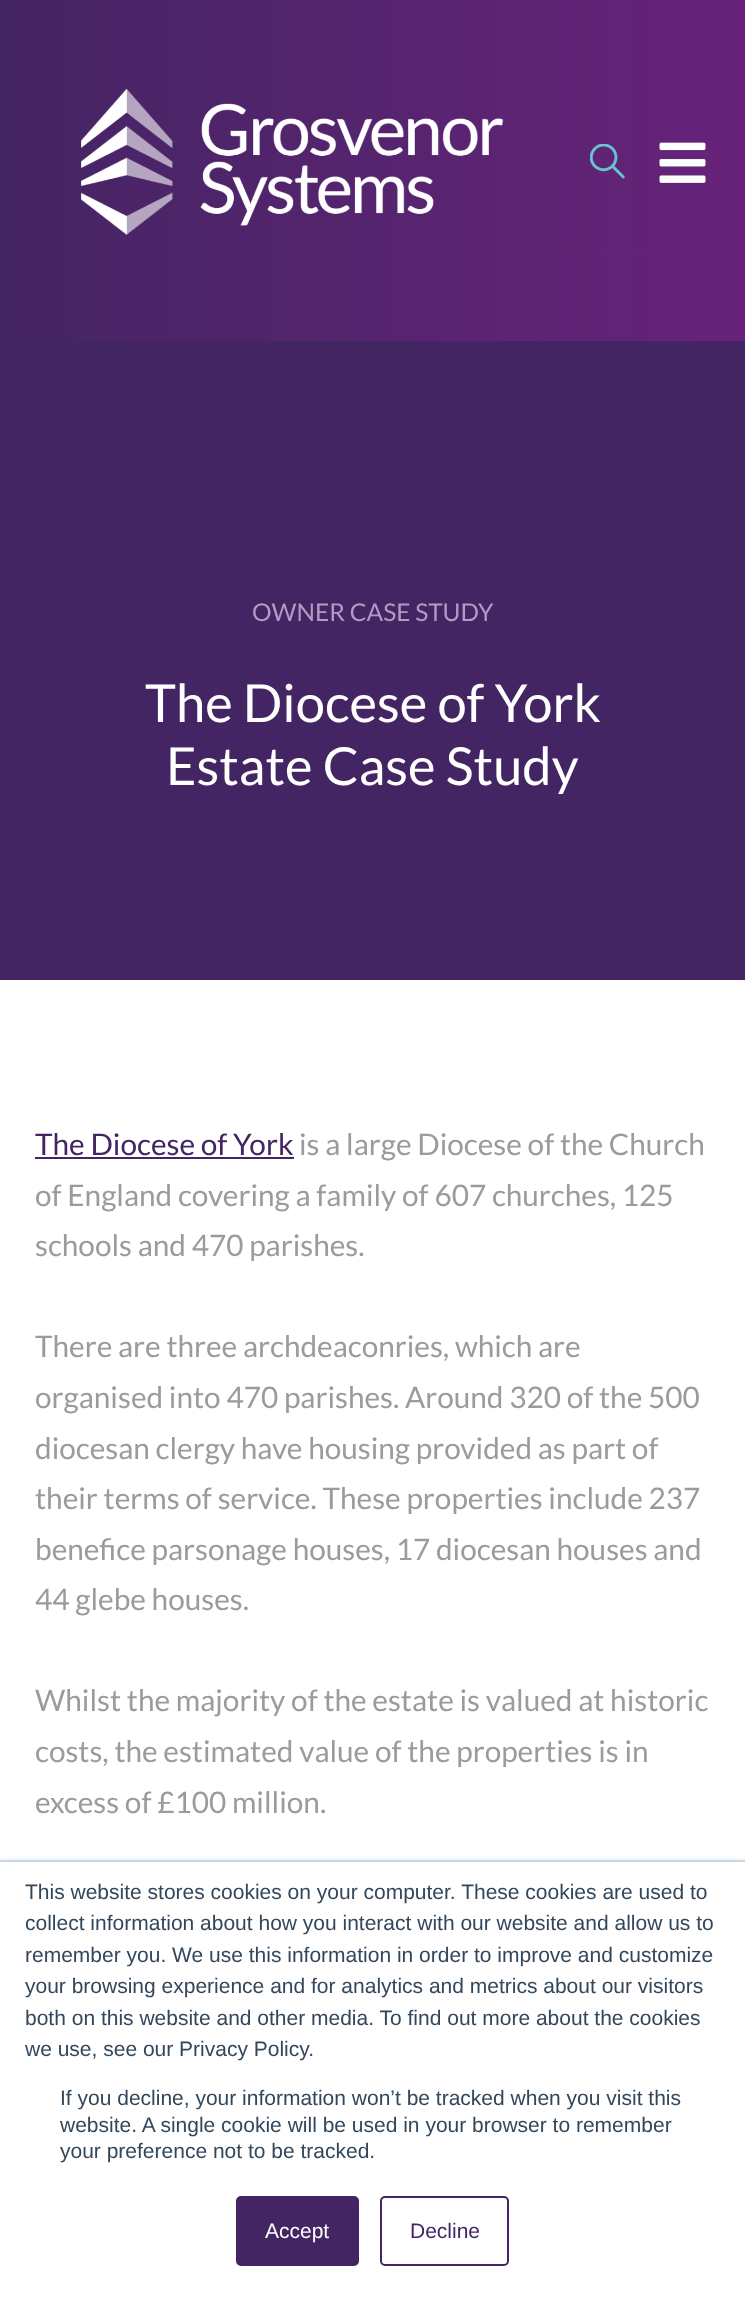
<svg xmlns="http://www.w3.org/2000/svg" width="745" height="2300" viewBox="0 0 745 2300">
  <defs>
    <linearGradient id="g1" gradientUnits="userSpaceOnUse" x1="0" y1="171" x2="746" y2="171"><stop offset="0" stop-color="rgb(68,37,99)"/><stop offset="1" stop-color="rgb(103,35,122)"/></linearGradient>
  </defs>
  <rect width="100%" height="100%" fill="rgb(255,255,255)"/>
  <rect x="0" y="0" width="745" height="341" fill="url(#g1)"/>
  <image x="81" y="88" width="423" height="147" href="pic1.png"/>
  <image x="590" y="144" width="35" height="35" href="pic2.png"/>
  <image x="659" y="142" width="47" height="41" href="pic3.png"/>
  <rect x="0" y="341" width="745" height="639" fill="rgb(68,37,99)"/>
  <text x="252" y="621" font-family="Lato" font-size="24.5" fill="rgb(177,155,194)">OWNER CASE STUDY</text>
  <g font-family="Lato" font-size="52.5" fill="rgb(255,255,255)">
    <text x="145" y="722">The Diocese of York</text>
    <text x="166" y="785">Estate Case Study</text>
  </g>
  <text x="35" y="1155" font-family="Lato" font-size="29.75" fill="rgb(68,37,99)">The Diocese of York</text>
  <rect x="35" y="1157" width="259" height="2" fill="rgb(68,37,99)"/>
  <g font-family="Lato" font-size="29.75" fill="rgb(155,155,155)">
    <text x="299" y="1155">is a large Diocese of the Church</text>
    <text>
      <tspan x="35" y="1206">of England covering a family of 607 churches, 125</tspan>
      <tspan x="35" y="1256">schools and 470 parishes.</tspan>
    </text>
    <text>
      <tspan x="35" y="1357">There are three archdeaconries, which are</tspan>
      <tspan x="35" y="1408">organised into 470 parishes. Around 320 of the 500</tspan>
      <tspan x="35" y="1459">diocesan clergy have housing provided as part of</tspan>
      <tspan x="35" y="1509">their terms of service. These properties include 237</tspan>
      <tspan x="35" y="1560">benefice parsonage houses, 17 diocesan houses and</tspan>
      <tspan x="35" y="1610">44 glebe houses.</tspan>
    </text>
    <text>
      <tspan x="35" y="1711">Whilst the majority of the estate is valued at historic</tspan>
      <tspan x="35" y="1762">costs, the estimated value of the properties is in</tspan>
      <tspan x="35" y="1813">excess of £100 million.</tspan>
    </text>
  </g>
  <rect x="0" y="1859" width="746" height="441" fill="rgb(234,240,246)" filter="blur(2.5px)"/>
  <rect x="0" y="1862" width="745" height="438" fill="rgb(255,255,255)"/>
  <rect x="0" y="1860" width="745" height="2" fill="rgb(203,214,226)"/>
  <g font-family="Liberation Sans" font-size="21" fill="rgb(51,71,91)">
    <text>
      <tspan x="25" y="1899">This website stores cookies on your computer. These cookies are used to</tspan>
      <tspan x="25" y="1930">collect information about how you interact with our website and allow us to</tspan>
      <tspan x="25" y="1962">remember you. We use this information in order to improve and customize</tspan>
      <tspan x="25" y="1993">your browsing experience and for analytics and metrics about our visitors</tspan>
      <tspan x="25" y="2025">both on this website and other media. To find out more about the cookies</tspan>
      <tspan x="25" y="2056">we use, see our Privacy Policy.</tspan>
    </text>
    <text>
      <tspan x="60" y="2105">If you decline, your information won’t be tracked when you visit this</tspan>
      <tspan x="60" y="2132">website. A single cookie will be used in your browser to remember</tspan>
      <tspan x="60" y="2158">your preference not to be tracked.</tspan>
    </text>
  </g>
  <rect x="237" y="2197" width="121" height="68" rx="4" fill="rgb(68,37,99)" stroke="rgb(68,37,99)" stroke-width="2"/>
  <text x="265" y="2238" font-family="Liberation Sans" font-size="21" fill="rgb(255,255,255)">Accept</text>
  <rect x="381" y="2197" width="127" height="68" rx="4" fill="none" stroke="rgb(68,37,99)" stroke-width="2"/>
  <text x="410" y="2238" font-family="Liberation Sans" font-size="21" fill="rgb(68,37,99)">Decline</text>
</svg>
